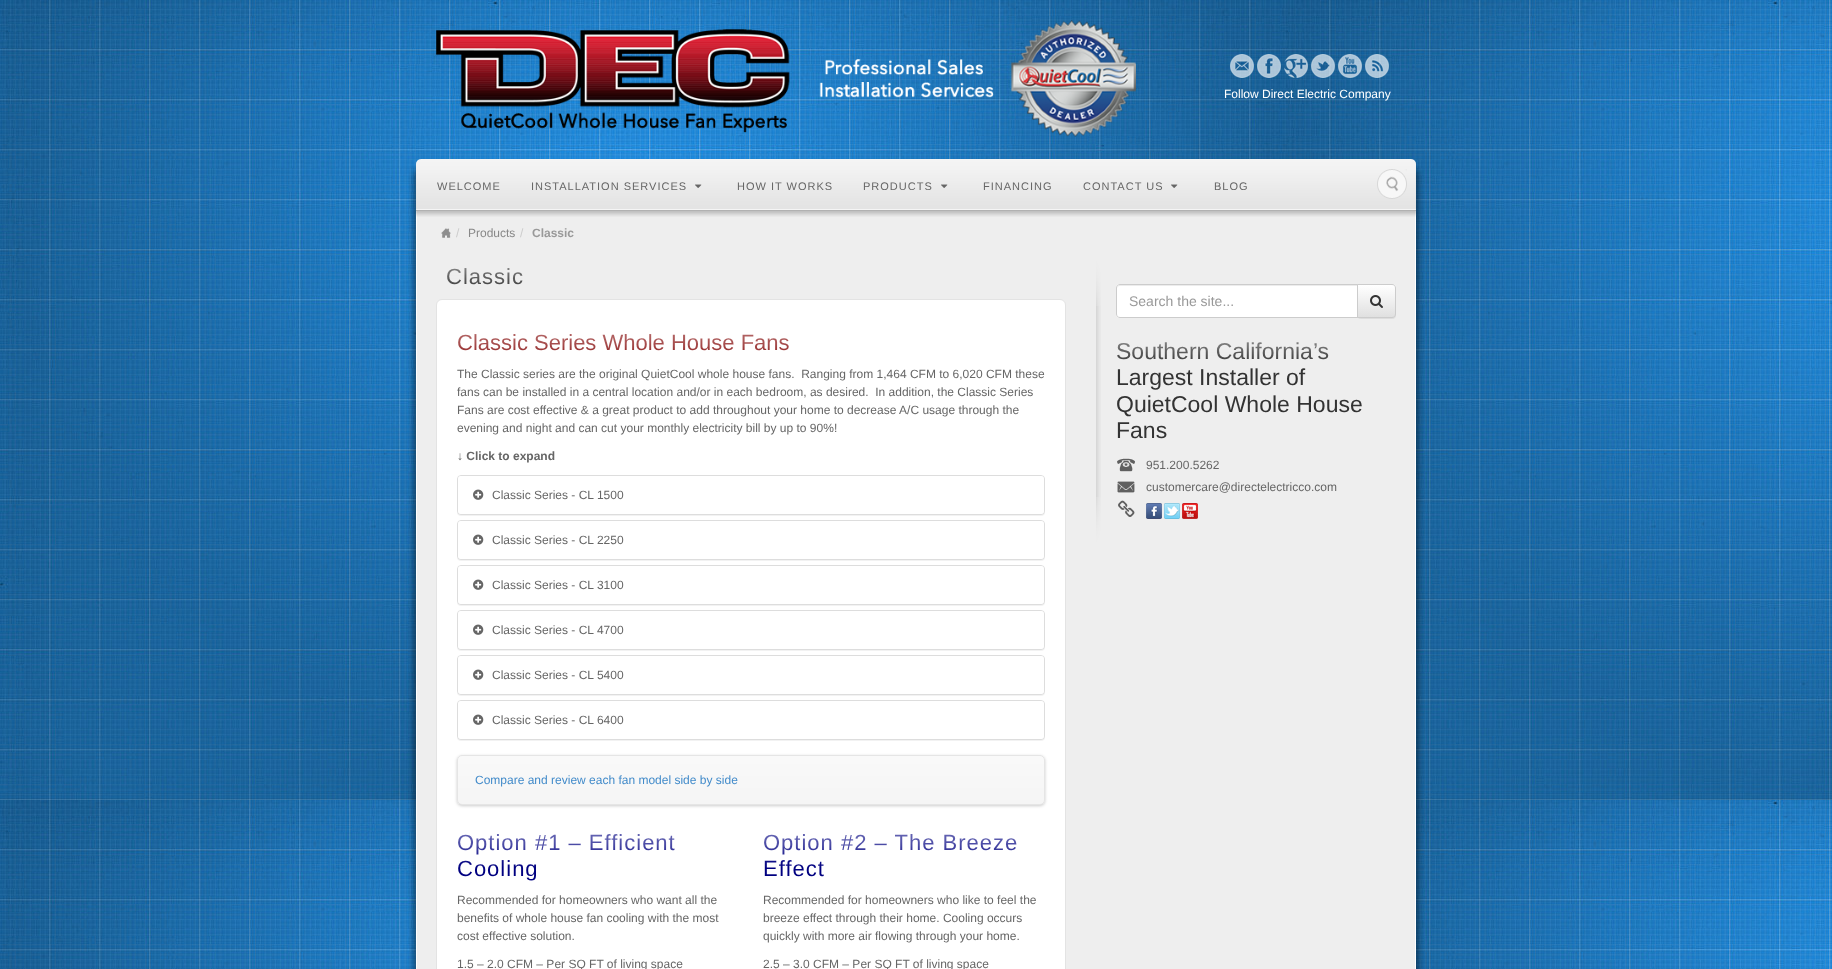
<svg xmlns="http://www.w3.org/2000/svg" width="1832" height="969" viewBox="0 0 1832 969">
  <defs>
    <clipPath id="clip1"><path d="M1357 284H1392C1394 284 1396 286 1396 288V314C1396 316 1394 318 1392 318H1357Z"/></clipPath>
    <linearGradient id="g1" gradientUnits="userSpaceOnUse" x1="1377" y1="285" x2="1377" y2="317"><stop offset="0" stop-color="rgb(255,255,255)"/><stop offset="1" stop-color="rgb(224,224,224)"/></linearGradient>
  </defs>
  <rect width="100%" height="100%" fill="rgb(255,255,255)"/>
  <image x="0" y="0" width="1832" height="969" href="pic1.png"/>
  <image x="436" y="20" width="700" height="117" href="pic2.png"/>
  <image x="1230" y="54" width="24" height="24" href="pic3.png"/>
  <image x="1257" y="54" width="24" height="24" href="pic4.png"/>
  <image x="1284" y="54" width="24" height="24" href="pic5.png"/>
  <image x="1311" y="54" width="24" height="24" href="pic6.png"/>
  <image x="1338" y="54" width="24" height="24" href="pic7.png"/>
  <image x="1365" y="54" width="24" height="24" href="pic8.png"/>
  <text x="1224" y="98" font-family="Liberation Sans" font-size="12" fill="rgb(255,255,255)">Follow Direct Electric Company</text>
  <image x="408" y="163" width="28" height="54" href="pic9.png"/>
  <image x="436" y="211" width="960" height="6" href="pic10.png"/>
  <image x="1396" y="163" width="28" height="54" href="pic11.png"/>
  <image x="416" y="159" width="6" height="58" href="pic12.png"/>
  <image x="422" y="159" width="988" height="58" href="pic13.png"/>
  <g font-family="Liberation Sans" font-size="11" letter-spacing="1" fill="rgb(102,102,102)">
    <text x="437" y="190">WELCOME</text>
    <text x="531" y="190">INSTALLATION SERVICES</text>
  </g>
  <image x="695" y="184" width="7" height="4" href="pic14.png"/>
  <g font-family="Liberation Sans" font-size="11" letter-spacing="1" fill="rgb(102,102,102)">
    <text x="737" y="190">HOW IT WORKS</text>
    <text x="863" y="190">PRODUCTS</text>
  </g>
  <image x="941" y="184" width="7" height="4" href="pic14.png"/>
  <g font-family="Liberation Sans" font-size="11" letter-spacing="1" fill="rgb(102,102,102)">
    <text x="983" y="190">FINANCING</text>
    <text x="1083" y="190">CONTACT US</text>
  </g>
  <image x="1171" y="184" width="7" height="4" href="pic14.png"/>
  <text x="1214" y="190" font-family="Liberation Sans" font-size="11" letter-spacing="1" fill="rgb(102,102,102)">BLOG</text>
  <image x="1377" y="169" width="30" height="30" href="pic15.png"/>
  <image x="1410" y="159" width="6" height="58" href="pic16.png"/>
  <image x="408" y="217" width="18" height="752" href="pic17.png"/>
  <rect x="426" y="217" width="980" height="752" fill="rgb(238,238,238)"/>
  <image x="441" y="228" width="10" height="10" href="pic18.png"/>
  <text x="456" y="237" font-family="Liberation Sans" font-size="12" fill="rgb(204,204,204)">/</text>
  <text x="468" y="237" font-family="Liberation Sans" font-size="12" fill="rgb(136,136,136)">Products</text>
  <text x="520" y="237" font-family="Liberation Sans" font-size="12" fill="rgb(204,204,204)">/</text>
  <text x="532" y="237" font-family="Liberation Sans" font-size="12" font-weight="bold" fill="rgb(153,153,153)">Classic</text>
  <text x="446" y="284" font-family="Liberation Sans" font-size="22" letter-spacing="1" fill="rgb(51,51,51)">Classic</text>
  <image x="447" y="268" width="76" height="17" href="pic19.png"/>
  <rect x="436.5" y="299.5" width="629" height="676" rx="5.5" fill="rgb(255,255,255)" stroke="rgb(227,227,227)"/>
  <text x="457" y="350" font-family="Liberation Sans" font-size="22" fill="rgb(128,0,0)">Classic Series Whole House Fans</text>
  <image x="458" y="334" width="331" height="17" href="pic20.png"/>
  <g font-family="Liberation Sans" font-size="12" fill="rgb(102,102,102)">
    <text xml:space="preserve"><tspan x="457" y="378">The Classic series are the original QuietCool whole house fans.  Ranging from 1,464 CFM to 6,020 CFM these</tspan><tspan x="457" y="396">fans can be installed in a central location and/or in each bedroom, as desired.  In addition, the Classic Series</tspan><tspan x="457" y="414">Fans are cost effective &amp; a great product to add throughout your home to decrease A/C usage through the</tspan><tspan x="457" y="432">evening and night and can cut your monthly electricity bill by up to 90%!</tspan></text>
  </g>
  <text x="457" y="460" font-family="Liberation Sans" font-size="12" font-weight="bold" fill="rgb(102,102,102)">↓ Click to expand</text>
  <rect x="457" y="476" width="588" height="40" rx="4" fill="rgba(0,0,0,0.05)" filter="blur(0.5px)"/>
  <rect x="457.5" y="475.5" width="587" height="39" rx="3.5" fill="none" stroke="rgb(221,221,221)"/>
  <rect x="458" y="476" width="586" height="38" rx="3" fill="rgb(255,255,255)"/>
  <image x="473" y="489" width="11" height="11" href="pic21.png"/>
  <text x="492" y="499" font-family="Liberation Sans" font-size="12" fill="rgb(102,102,102)">Classic Series - CL 1500</text>
  <rect x="457" y="521" width="588" height="40" rx="4" fill="rgba(0,0,0,0.05)" filter="blur(0.5px)"/>
  <rect x="457.5" y="520.5" width="587" height="39" rx="3.5" fill="none" stroke="rgb(221,221,221)"/>
  <rect x="458" y="521" width="586" height="38" rx="3" fill="rgb(255,255,255)"/>
  <image x="473" y="534" width="11" height="11" href="pic21.png"/>
  <text x="492" y="544" font-family="Liberation Sans" font-size="12" fill="rgb(102,102,102)">Classic Series - CL 2250</text>
  <rect x="457" y="566" width="588" height="40" rx="4" fill="rgba(0,0,0,0.05)" filter="blur(0.5px)"/>
  <rect x="457.5" y="565.5" width="587" height="39" rx="3.5" fill="none" stroke="rgb(221,221,221)"/>
  <rect x="458" y="566" width="586" height="38" rx="3" fill="rgb(255,255,255)"/>
  <image x="473" y="579" width="11" height="11" href="pic21.png"/>
  <text x="492" y="589" font-family="Liberation Sans" font-size="12" fill="rgb(102,102,102)">Classic Series - CL 3100</text>
  <rect x="457" y="611" width="588" height="40" rx="4" fill="rgba(0,0,0,0.05)" filter="blur(0.5px)"/>
  <rect x="457.5" y="610.5" width="587" height="39" rx="3.5" fill="none" stroke="rgb(221,221,221)"/>
  <rect x="458" y="611" width="586" height="38" rx="3" fill="rgb(255,255,255)"/>
  <image x="473" y="624" width="11" height="11" href="pic21.png"/>
  <text x="492" y="634" font-family="Liberation Sans" font-size="12" fill="rgb(102,102,102)">Classic Series - CL 4700</text>
  <rect x="457" y="656" width="588" height="40" rx="4" fill="rgba(0,0,0,0.05)" filter="blur(0.5px)"/>
  <rect x="457.5" y="655.5" width="587" height="39" rx="3.5" fill="none" stroke="rgb(221,221,221)"/>
  <rect x="458" y="656" width="586" height="38" rx="3" fill="rgb(255,255,255)"/>
  <image x="473" y="669" width="11" height="11" href="pic21.png"/>
  <text x="492" y="679" font-family="Liberation Sans" font-size="12" fill="rgb(102,102,102)">Classic Series - CL 5400</text>
  <rect x="457" y="701" width="588" height="40" rx="4" fill="rgba(0,0,0,0.05)" filter="blur(0.5px)"/>
  <rect x="457.5" y="700.5" width="587" height="39" rx="3.5" fill="none" stroke="rgb(221,221,221)"/>
  <rect x="458" y="701" width="586" height="38" rx="3" fill="rgb(255,255,255)"/>
  <image x="473" y="714" width="11" height="11" href="pic21.png"/>
  <text x="492" y="724" font-family="Liberation Sans" font-size="12" fill="rgb(102,102,102)">Classic Series - CL 6400</text>
  <rect x="457" y="756" width="588" height="50" rx="5" fill="rgba(0,0,0,0.2)" filter="blur(1.5px)"/>
  <image x="457" y="755" width="588" height="49" href="pic22.png"/>
  <rect x="457.5" y="755.5" width="587" height="49" rx="4.5" fill="none" stroke="rgb(229,229,229)"/>
  <text x="475" y="784" font-family="Liberation Sans" font-size="12" fill="rgb(66,139,202)">Compare and review each fan model side by side</text>
  <g font-family="Liberation Sans" font-size="22" letter-spacing="1" fill="rgb(0,0,128)">
    <text>
      <tspan x="457" y="850">Option #1 – Efficient</tspan>
      <tspan x="457" y="876">Cooling</tspan>
    </text>
  </g>
  <image x="458" y="834" width="217" height="33" href="pic23.png"/>
  <g font-family="Liberation Sans" font-size="12" fill="rgb(102,102,102)">
    <text>
      <tspan x="457" y="904">Recommended for homeowners who want all the</tspan>
      <tspan x="457" y="922">benefits of whole house fan cooling with the most</tspan>
      <tspan x="457" y="940">cost effective solution.</tspan>
    </text>
    <text x="457" y="968">1.5 – 2.0 CFM – Per SQ FT of living space</text>
  </g>
  <g font-family="Liberation Sans" font-size="22" letter-spacing="1" fill="rgb(0,0,128)">
    <text>
      <tspan x="763" y="850">Option #2 – The Breeze</tspan>
      <tspan x="763" y="876">Effect</tspan>
    </text>
  </g>
  <image x="763" y="834" width="253" height="33" href="pic24.png"/>
  <g font-family="Liberation Sans" font-size="12" fill="rgb(102,102,102)">
    <text>
      <tspan x="763" y="904">Recommended for homeowners who like to feel the</tspan>
      <tspan x="763" y="922">breeze effect through their home. Cooling occurs</tspan>
      <tspan x="763" y="940">quickly with more air flowing through your home.</tspan>
    </text>
    <text x="763" y="968">2.5 – 3.0 CFM – Per SQ FT of living space</text>
  </g>
  <image x="1096" y="306" width="5" height="191" href="pic25.png"/>
  <image x="1096" y="254" width="5" height="52" href="pic26.png"/>
  <path d="M1120 284H1358V318H1120C1118 318 1116 316 1116 314V288C1116 286 1118 284 1120 284Z" fill="rgb(255,255,255)"/>
  <path d="M1120 286H1357V285H1120C1118 285 1117 287 1117 289C1117 287 1118 286 1120 286Z" fill="rgb(236,236,236)"/>
  <path d="M1120 284.5H1357.5V317.5H1120C1118 317.5 1116.5 316 1116.5 314V288C1116.5 286 1118 284.5 1120 284.5Z" fill="none" stroke="rgb(204,204,204)"/>
  <text x="1129" y="306" font-family="Liberation Sans" font-size="14" fill="rgb(153,153,153)">Search the site...</text>
  <rect x="1357" y="285" width="39" height="34" rx="4" fill="rgba(0,0,0,0.07)" filter="blur(0.5px)"/>
  <g clip-path="url(#clip1)">
    <rect x="1358" y="285" width="38" height="32" fill="url(#g1)"/>
  </g>
  <path d="M1357.5 284.5H1392C1394 284.5 1395.5 286 1395.5 288V314C1395.5 316 1394 317.5 1392 317.5H1357.5Z" fill="none" stroke="rgb(204,204,204)"/>
  <image x="1370" y="295" width="13" height="13" href="pic27.png"/>
  <text x="1116" y="359" font-family="Liberation Sans" font-size="23" fill="rgb(51,51,51)">Southern California’s</text>
  <image x="1117" y="342" width="212" height="17" href="pic28.png"/>
  <g font-family="Liberation Sans" font-size="23" fill="rgb(51,51,51)">
    <text>
      <tspan x="1116" y="385">Largest Installer of</tspan>
      <tspan x="1116" y="412">QuietCool Whole House</tspan>
      <tspan x="1116" y="438">Fans</tspan>
    </text>
  </g>
  <image x="1117" y="458" width="18" height="14" href="pic29.png"/>
  <text x="1146" y="469" font-family="Liberation Sans" font-size="12" fill="rgb(102,102,102)">951.200.5262</text>
  <image x="1117" y="481" width="18" height="12" href="pic30.png"/>
  <text x="1146" y="491" font-family="Liberation Sans" font-size="12" fill="rgb(102,102,102)">customercare@directelectricco.com</text>
  <image x="1118" y="500" width="17" height="17" href="pic31.png"/>
  <image x="1146" y="503" width="16" height="16" href="pic32.png"/>
  <image x="1164" y="503" width="16" height="16" href="pic33.png"/>
  <image x="1182" y="503" width="16" height="16" href="pic34.png"/>
  <image x="1096" y="497" width="5" height="52" href="pic35.png"/>
  <image x="1406" y="217" width="18" height="752" href="pic36.png"/>
</svg>
